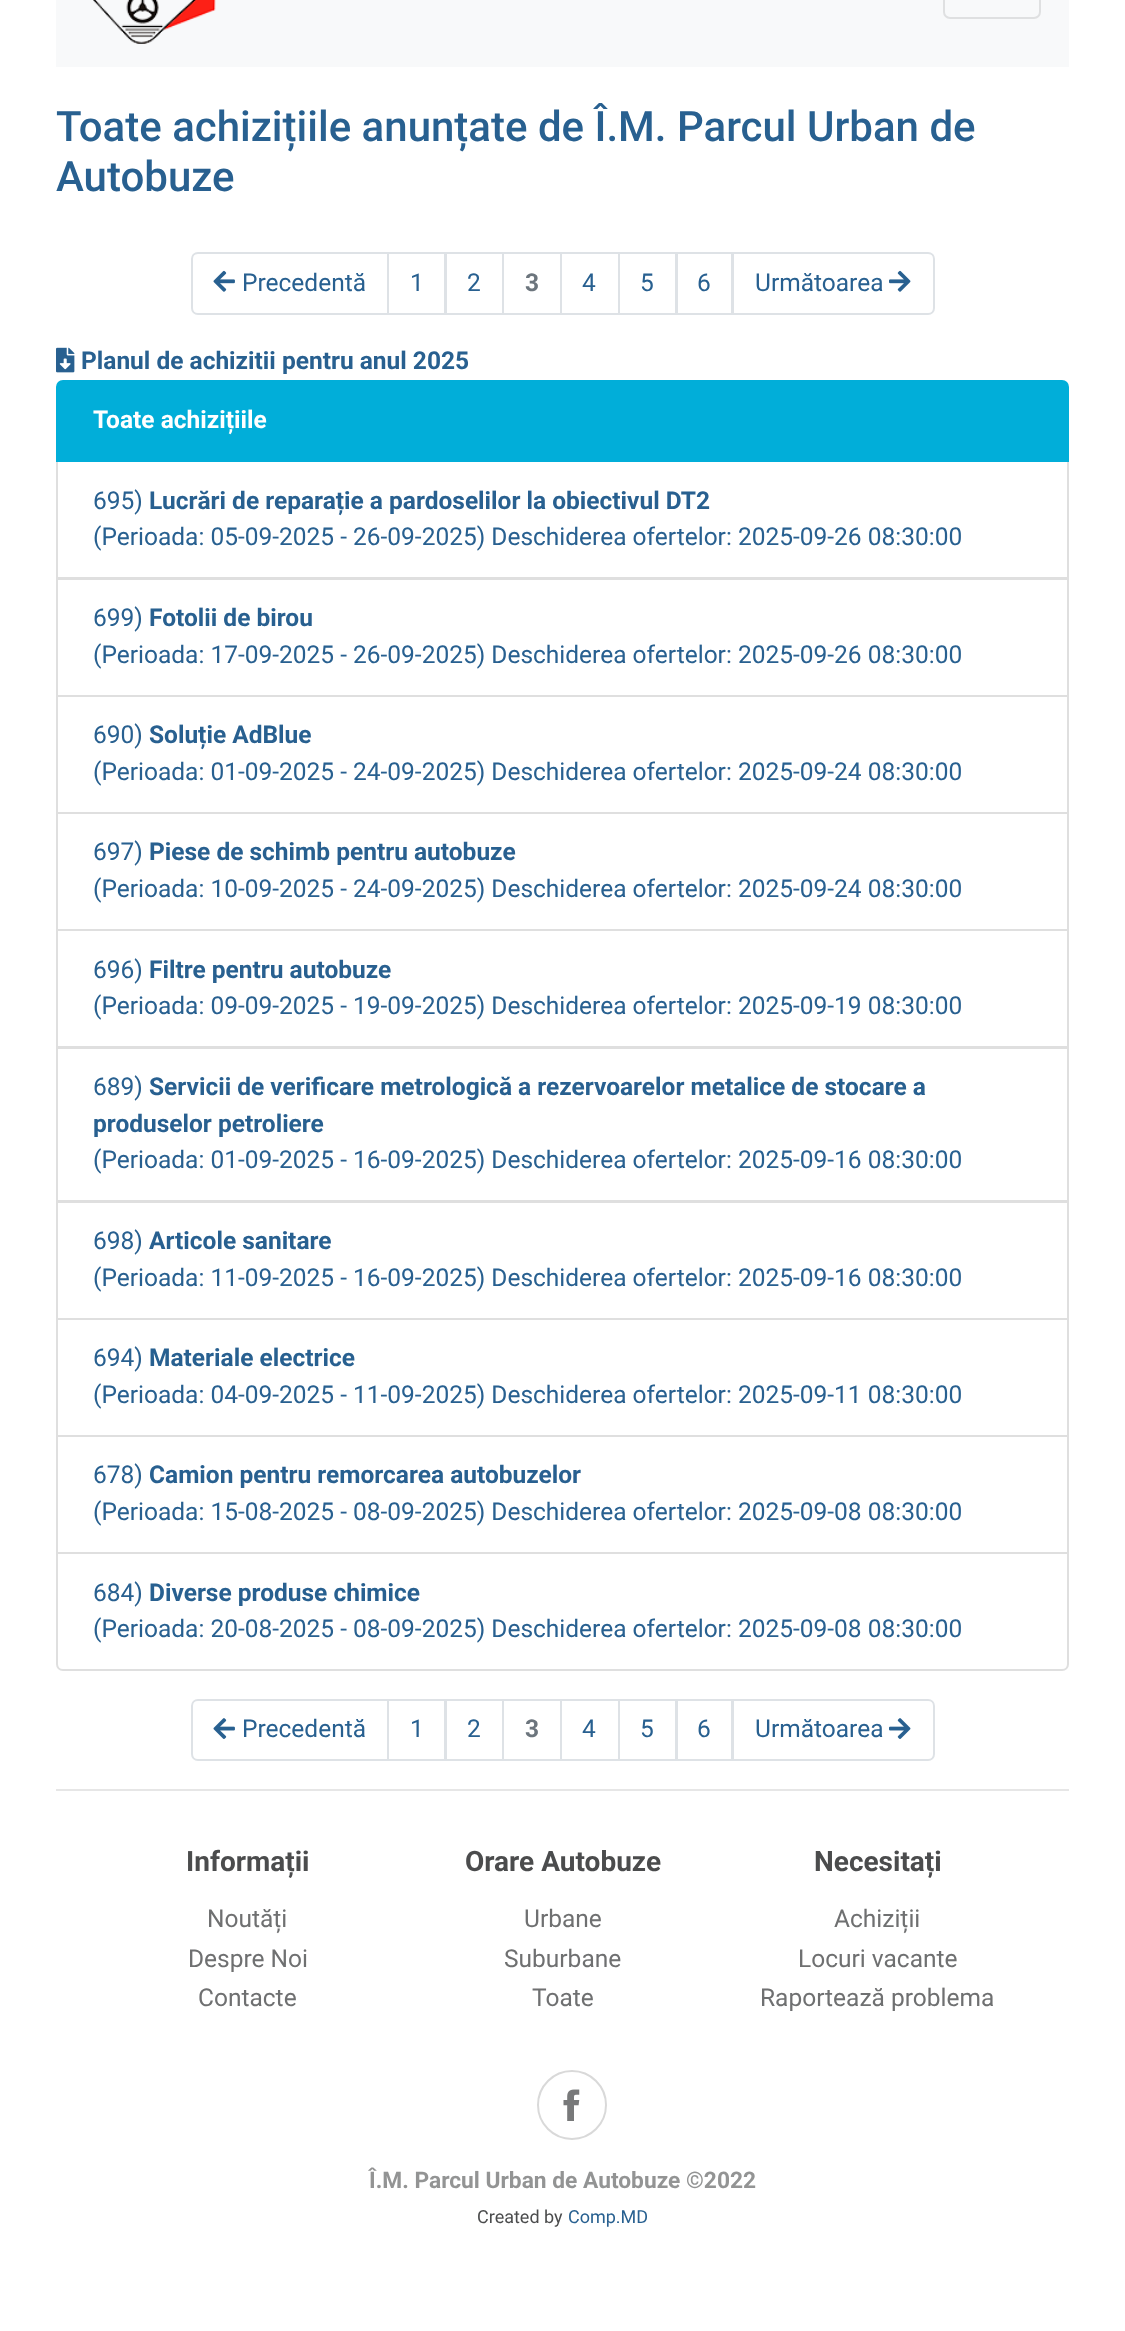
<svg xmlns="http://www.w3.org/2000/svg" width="1125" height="2331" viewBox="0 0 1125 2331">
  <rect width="100%" height="100%" fill="rgb(255,255,255)"/>
  <rect x="56" y="0" width="1013" height="67" fill="rgb(248,249,250)"/>
  <image x="93" y="0" width="123" height="44" href="pic1.png"/>
  <rect x="944" y="-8" width="96" height="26" rx="6" fill="none" stroke="rgb(223,224,225)" stroke-width="2"/>
  <g font-family="Roboto" font-size="42" font-weight="500" fill="rgb(40,96,144)">
    <text>
      <tspan x="56" y="141">Toate achizițiile anunțate de Î.M. Parcul Urban de</tspan>
      <tspan x="56" y="191">Autobuze</tspan>
    </text>
  </g>
  <path d="M198 253H388V314H198C194.5 314 192 311.5 192 308V259C192 255.5 194.5 253 198 253Z" fill="none" stroke="rgb(222,226,230)" stroke-width="2"/>
  <image x="213" y="270" width="22" height="22" href="pic2.png"/>
  <text x="242" y="291" font-family="Roboto" font-size="24.5" fill="rgb(40,96,144)">Precedentă</text>
  <rect x="388" y="253" width="57" height="61" fill="none" stroke="rgb(222,226,230)" stroke-width="2"/>
  <text x="410" y="291" font-family="Roboto" font-size="24.5" fill="rgb(40,96,144)">1</text>
  <rect x="446" y="253" width="57" height="61" fill="none" stroke="rgb(222,226,230)" stroke-width="2"/>
  <text x="467" y="291" font-family="Roboto" font-size="24.5" fill="rgb(40,96,144)">2</text>
  <rect x="503" y="253" width="58" height="61" fill="none" stroke="rgb(222,226,230)" stroke-width="2"/>
  <text x="525" y="291" font-family="Roboto" font-size="24.5" font-weight="bold" fill="rgb(108,117,125)">3</text>
  <rect x="561" y="253" width="58" height="61" fill="none" stroke="rgb(222,226,230)" stroke-width="2"/>
  <text x="582" y="291" font-family="Roboto" font-size="24.5" fill="rgb(40,96,144)">4</text>
  <rect x="619" y="253" width="57" height="61" fill="none" stroke="rgb(222,226,230)" stroke-width="2"/>
  <text x="640" y="291" font-family="Roboto" font-size="24.5" fill="rgb(40,96,144)">5</text>
  <rect x="677" y="253" width="55" height="61" fill="none" stroke="rgb(222,226,230)" stroke-width="2"/>
  <text x="697" y="291" font-family="Roboto" font-size="24.5" fill="rgb(40,96,144)">6</text>
  <path d="M733 253H928C931.5 253 934 255.5 934 259V308C934 311.5 931.5 314 928 314H733Z" fill="rgb(255,255,255)" stroke="rgb(222,226,230)" stroke-width="2"/>
  <text x="755" y="291" font-family="Roboto" font-size="24.5" fill="rgb(40,96,144)">Următoarea</text>
  <image x="889" y="270" width="22" height="22" href="pic3.png"/>
  <image x="56" y="347" width="19" height="26" href="pic4.png"/>
  <text x="81" y="369" font-family="Roboto" font-size="24.5" font-weight="bold" fill="rgb(40,96,144)">Planul de achizitii pentru anul 2025</text>
  <rect x="57" y="461" width="1011" height="117" fill="none" stroke="rgb(223,223,223)" stroke-width="2"/>
  <path d="M63 381H1062C1065.5 381 1068 383.5 1068 387V461H57V387C57 383.5 59.5 381 63 381Z" fill="rgb(1,174,217)" stroke="rgb(1,174,217)" stroke-width="2"/>
  <text x="93" y="428" font-family="Roboto" font-size="24.5" font-weight="bold" fill="rgb(255,255,255)">Toate achizițiile</text>
  <text x="93" y="509" font-family="Roboto" font-size="24.5" fill="rgb(40,96,144)">695)</text>
  <text x="149" y="509" font-family="Roboto" font-size="24.5" font-weight="bold" fill="rgb(40,96,144)">Lucrări de reparație a pardoselilor la obiectivul DT2</text>
  <text x="93" y="545" font-family="Roboto" font-size="24.5" fill="rgb(40,96,144)">(Perioada: 05-09-2025 - 26-09-2025) Deschiderea ofertelor: 2025-09-26 08:30:00</text>
  <rect x="57" y="579" width="1011" height="117" fill="none" stroke="rgb(223,223,223)" stroke-width="2"/>
  <text x="93" y="626" font-family="Roboto" font-size="24.5" fill="rgb(40,96,144)">699)</text>
  <text x="149" y="626" font-family="Roboto" font-size="24.5" font-weight="bold" fill="rgb(40,96,144)">Fotolii de birou</text>
  <text x="93" y="663" font-family="Roboto" font-size="24.5" fill="rgb(40,96,144)">(Perioada: 17-09-2025 - 26-09-2025) Deschiderea ofertelor: 2025-09-26 08:30:00</text>
  <rect x="57" y="696" width="1011" height="117" fill="none" stroke="rgb(223,223,223)" stroke-width="2"/>
  <text x="93" y="743" font-family="Roboto" font-size="24.5" fill="rgb(40,96,144)">690)</text>
  <text x="149" y="743" font-family="Roboto" font-size="24.5" font-weight="bold" fill="rgb(40,96,144)">Soluție AdBlue</text>
  <text x="93" y="780" font-family="Roboto" font-size="24.5" fill="rgb(40,96,144)">(Perioada: 01-09-2025 - 24-09-2025) Deschiderea ofertelor: 2025-09-24 08:30:00</text>
  <rect x="57" y="813" width="1011" height="117" fill="none" stroke="rgb(223,223,223)" stroke-width="2"/>
  <text x="93" y="860" font-family="Roboto" font-size="24.5" fill="rgb(40,96,144)">697)</text>
  <text x="149" y="860" font-family="Roboto" font-size="24.5" font-weight="bold" fill="rgb(40,96,144)">Piese de schimb pentru autobuze</text>
  <text x="93" y="897" font-family="Roboto" font-size="24.5" fill="rgb(40,96,144)">(Perioada: 10-09-2025 - 24-09-2025) Deschiderea ofertelor: 2025-09-24 08:30:00</text>
  <rect x="57" y="930" width="1011" height="117" fill="none" stroke="rgb(223,223,223)" stroke-width="2"/>
  <text x="93" y="978" font-family="Roboto" font-size="24.5" fill="rgb(40,96,144)">696)</text>
  <text x="149" y="978" font-family="Roboto" font-size="24.5" font-weight="bold" fill="rgb(40,96,144)">Filtre pentru autobuze</text>
  <text x="93" y="1014" font-family="Roboto" font-size="24.5" fill="rgb(40,96,144)">(Perioada: 09-09-2025 - 19-09-2025) Deschiderea ofertelor: 2025-09-19 08:30:00</text>
  <rect x="57" y="1048" width="1011" height="153" fill="none" stroke="rgb(223,223,223)" stroke-width="2"/>
  <text x="93" y="1095" font-family="Roboto" font-size="24.5" fill="rgb(40,96,144)">689)</text>
  <g font-family="Roboto" font-size="24.5" font-weight="bold" fill="rgb(40,96,144)">
    <text x="149" y="1095">Servicii de verificare metrologică a rezervoarelor metalice de stocare a</text>
    <text x="93" y="1132">produselor petroliere</text>
  </g>
  <text x="93" y="1168" font-family="Roboto" font-size="24.5" fill="rgb(40,96,144)">(Perioada: 01-09-2025 - 16-09-2025) Deschiderea ofertelor: 2025-09-16 08:30:00</text>
  <rect x="57" y="1202" width="1011" height="117" fill="none" stroke="rgb(223,223,223)" stroke-width="2"/>
  <text x="93" y="1249" font-family="Roboto" font-size="24.5" fill="rgb(40,96,144)">698)</text>
  <text x="149" y="1249" font-family="Roboto" font-size="24.5" font-weight="bold" fill="rgb(40,96,144)">Articole sanitare</text>
  <text x="93" y="1286" font-family="Roboto" font-size="24.5" fill="rgb(40,96,144)">(Perioada: 11-09-2025 - 16-09-2025) Deschiderea ofertelor: 2025-09-16 08:30:00</text>
  <rect x="57" y="1319" width="1011" height="117" fill="none" stroke="rgb(223,223,223)" stroke-width="2"/>
  <text x="93" y="1366" font-family="Roboto" font-size="24.5" fill="rgb(40,96,144)">694)</text>
  <text x="149" y="1366" font-family="Roboto" font-size="24.5" font-weight="bold" fill="rgb(40,96,144)">Materiale electrice</text>
  <text x="93" y="1403" font-family="Roboto" font-size="24.5" fill="rgb(40,96,144)">(Perioada: 04-09-2025 - 11-09-2025) Deschiderea ofertelor: 2025-09-11 08:30:00</text>
  <rect x="57" y="1436" width="1011" height="117" fill="none" stroke="rgb(223,223,223)" stroke-width="2"/>
  <text x="93" y="1483" font-family="Roboto" font-size="24.5" fill="rgb(40,96,144)">678)</text>
  <text x="149" y="1483" font-family="Roboto" font-size="24.5" font-weight="bold" fill="rgb(40,96,144)">Camion pentru remorcarea autobuzelor</text>
  <text x="93" y="1520" font-family="Roboto" font-size="24.5" fill="rgb(40,96,144)">(Perioada: 15-08-2025 - 08-09-2025) Deschiderea ofertelor: 2025-09-08 08:30:00</text>
  <path d="M57 1553H1068V1664C1068 1667.5 1065.5 1670 1062 1670H63C59.5 1670 57 1667.5 57 1664Z" fill="rgb(255,255,255)" stroke="rgb(223,223,223)" stroke-width="2"/>
  <text x="93" y="1601" font-family="Roboto" font-size="24.5" fill="rgb(40,96,144)">684)</text>
  <text x="149" y="1601" font-family="Roboto" font-size="24.5" font-weight="bold" fill="rgb(40,96,144)">Diverse produse chimice</text>
  <text x="93" y="1637" font-family="Roboto" font-size="24.5" fill="rgb(40,96,144)">(Perioada: 20-08-2025 - 08-09-2025) Deschiderea ofertelor: 2025-09-08 08:30:00</text>
  <path d="M198 1700H388V1760H198C194.5 1760 192 1757.5 192 1754V1706C192 1702.5 194.5 1700 198 1700Z" fill="none" stroke="rgb(222,226,230)" stroke-width="2"/>
  <image x="213" y="1718" width="22" height="21" href="pic5.png"/>
  <text x="242" y="1737" font-family="Roboto" font-size="24.5" fill="rgb(40,96,144)">Precedentă</text>
  <rect x="388" y="1700" width="57" height="60" fill="none" stroke="rgb(222,226,230)" stroke-width="2"/>
  <text x="410" y="1737" font-family="Roboto" font-size="24.5" fill="rgb(40,96,144)">1</text>
  <rect x="446" y="1700" width="57" height="60" fill="none" stroke="rgb(222,226,230)" stroke-width="2"/>
  <text x="467" y="1737" font-family="Roboto" font-size="24.5" fill="rgb(40,96,144)">2</text>
  <rect x="503" y="1700" width="58" height="60" fill="none" stroke="rgb(222,226,230)" stroke-width="2"/>
  <text x="525" y="1737" font-family="Roboto" font-size="24.5" font-weight="bold" fill="rgb(108,117,125)">3</text>
  <rect x="561" y="1700" width="58" height="60" fill="none" stroke="rgb(222,226,230)" stroke-width="2"/>
  <text x="582" y="1737" font-family="Roboto" font-size="24.5" fill="rgb(40,96,144)">4</text>
  <rect x="619" y="1700" width="57" height="60" fill="none" stroke="rgb(222,226,230)" stroke-width="2"/>
  <text x="640" y="1737" font-family="Roboto" font-size="24.5" fill="rgb(40,96,144)">5</text>
  <rect x="677" y="1700" width="55" height="60" fill="none" stroke="rgb(222,226,230)" stroke-width="2"/>
  <text x="697" y="1737" font-family="Roboto" font-size="24.5" fill="rgb(40,96,144)">6</text>
  <path d="M733 1700H928C931.5 1700 934 1702.5 934 1706V1754C934 1757.5 931.5 1760 928 1760H733Z" fill="rgb(255,255,255)" stroke="rgb(222,226,230)" stroke-width="2"/>
  <text x="755" y="1737" font-family="Roboto" font-size="24.5" fill="rgb(40,96,144)">Următoarea</text>
  <image x="889" y="1718" width="22" height="21" href="pic6.png"/>
  <rect x="56" y="1789" width="1013" height="2" fill="rgb(230,230,230)"/>
  <text x="186" y="1871" font-family="Roboto" font-size="28" font-weight="bold" fill="rgb(75,76,77)">Informații</text>
  <g font-family="Roboto" font-size="24.5" fill="rgb(111,112,113)">
    <text x="207" y="1927">Noutăți</text>
    <text x="188" y="1967">Despre Noi</text>
    <text x="198" y="2006">Contacte</text>
  </g>
  <text x="465" y="1871" font-family="Roboto" font-size="28" font-weight="bold" fill="rgb(75,76,77)">Orare Autobuze</text>
  <g font-family="Roboto" font-size="24.5" fill="rgb(111,112,113)">
    <text x="524" y="1927">Urbane</text>
    <text x="504" y="1967">Suburbane</text>
    <text x="532" y="2006">Toate</text>
  </g>
  <text x="814" y="1871" font-family="Roboto" font-size="28" font-weight="bold" fill="rgb(75,76,77)">Necesitați</text>
  <g font-family="Roboto" font-size="24.5" fill="rgb(111,112,113)">
    <text x="834" y="1927">Achiziții</text>
    <text x="798" y="1967">Locuri vacante</text>
    <text x="760" y="2006">Raportează problema</text>
  </g>
  <circle cx="572" cy="2105" r="34" fill="none" stroke="rgb(217,217,217)" stroke-width="2"/>
  <image x="563" y="2089" width="17" height="32" href="pic7.png"/>
  <text x="369" y="2188" font-family="Roboto" font-size="22.75" font-weight="bold" fill="rgb(147,148,148)">Î.M. Parcul Urban de Autobuze ©2022</text>
  <text x="477" y="2223" font-family="Roboto" font-size="18" fill="rgb(75,76,77)">Created by</text>
  <text x="568" y="2223" font-family="Roboto" font-size="18" fill="rgb(40,96,144)">Comp.MD</text>
</svg>
